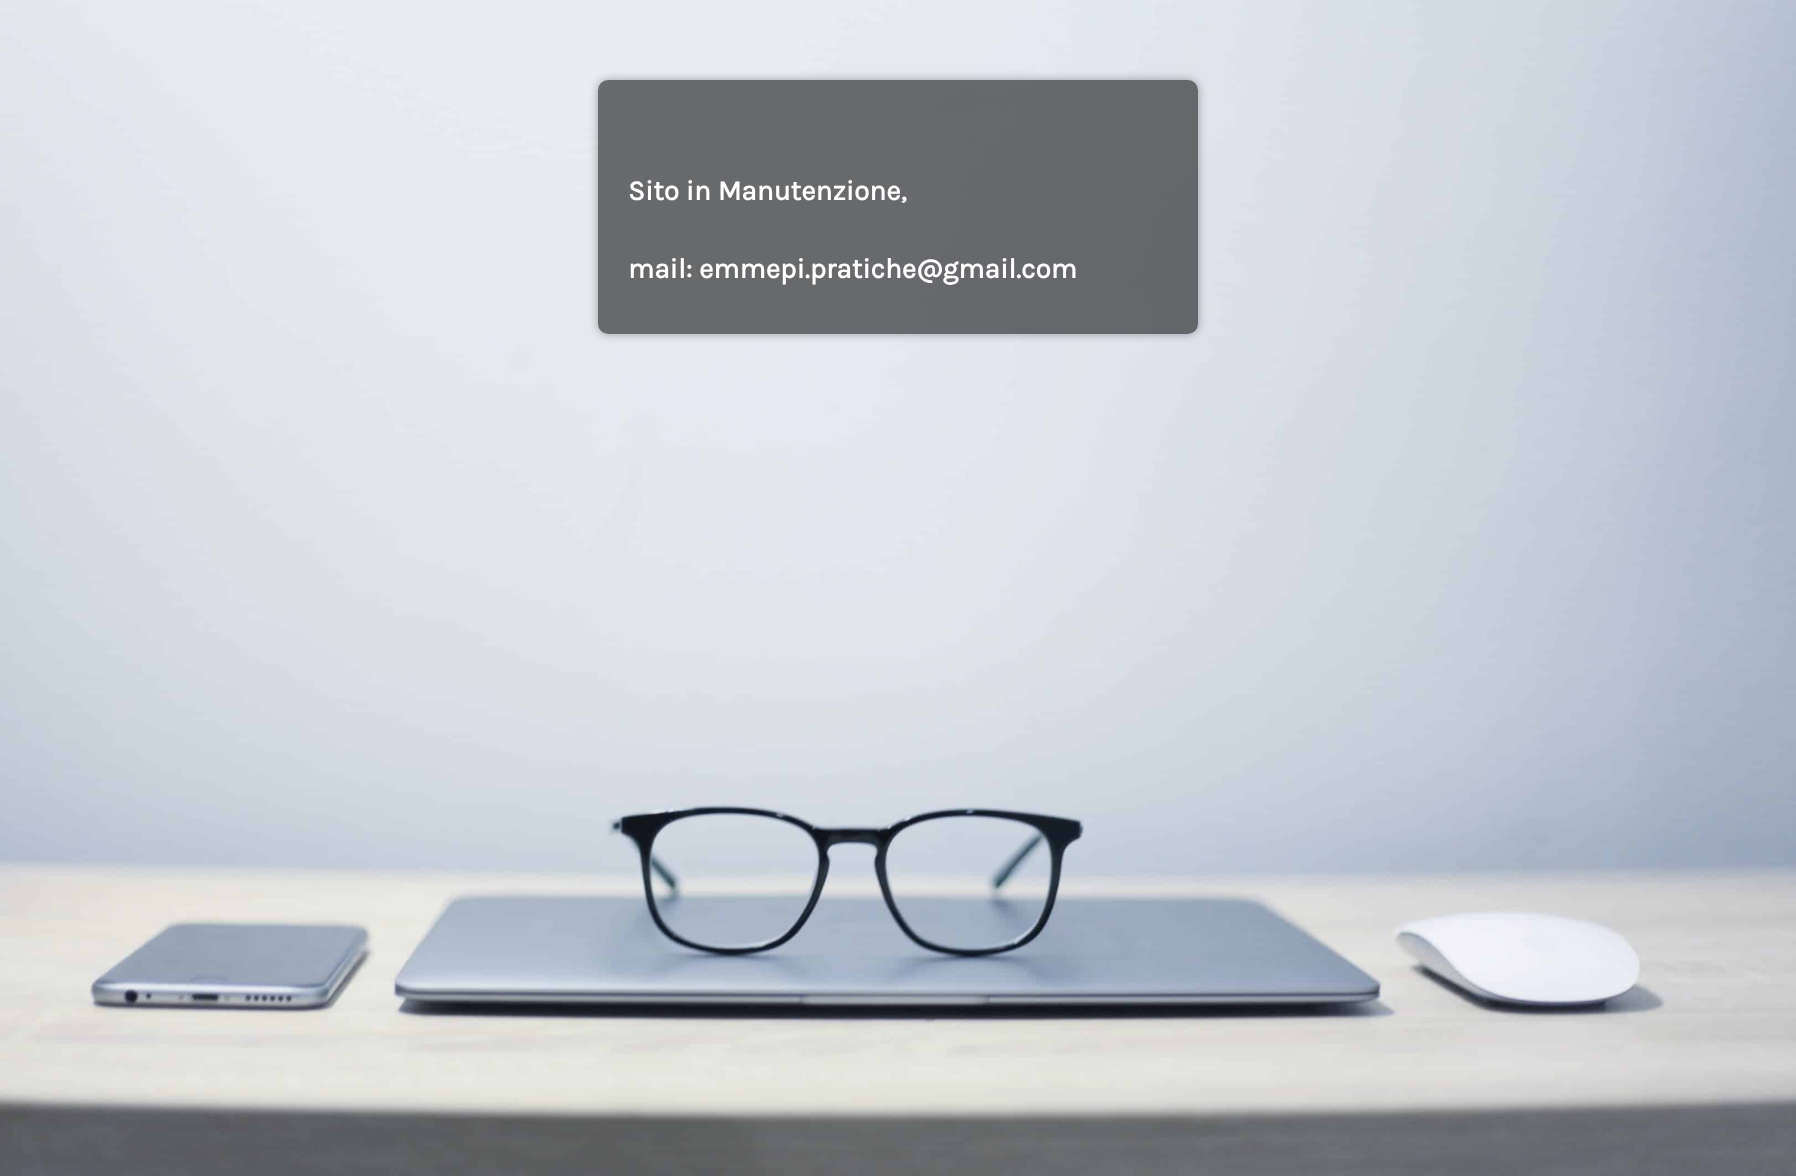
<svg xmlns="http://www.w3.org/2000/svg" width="1796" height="1176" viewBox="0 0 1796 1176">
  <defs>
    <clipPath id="clip1"><path d="M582 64H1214V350H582ZM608 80H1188C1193.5 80 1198 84.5 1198 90V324C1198 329.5 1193.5 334 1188 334H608C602.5 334 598 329.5 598 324V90C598 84.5 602.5 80 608 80Z" clip-rule="evenodd"/></clipPath>
  </defs>
  <rect width="100%" height="100%" fill="rgb(255,255,255)"/>
  <image x="0" y="0" width="1796" height="1176" href="pic1.png"/>
  <g clip-path="url(#clip1)">
    <rect x="598" y="80" width="600" height="254" rx="10" fill="rgba(0,0,0,0.33)" filter="blur(5px)"/>
  </g>
  <rect x="598" y="80" width="600" height="254" rx="10" fill="rgba(0,0,0,0.55)"/>
  <g font-family="Karla" font-size="28" font-weight="bold" fill="rgb(255,255,255)">
    <text x="628" y="200">Sito in Manutenzione,</text>
    <text x="628" y="278">mail: emmepi.pratiche@gmail.com</text>
  </g>
</svg>
